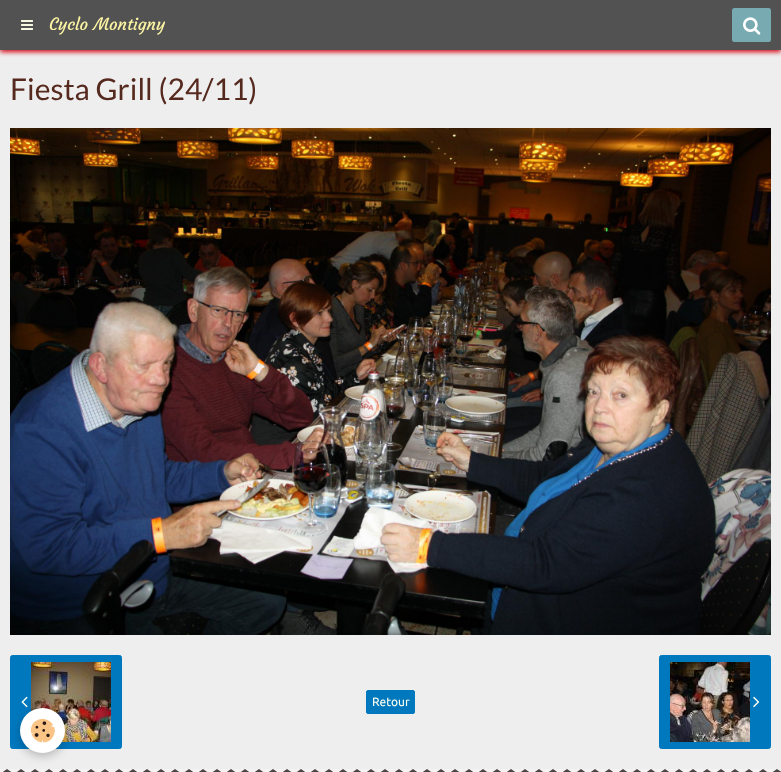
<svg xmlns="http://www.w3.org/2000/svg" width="781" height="772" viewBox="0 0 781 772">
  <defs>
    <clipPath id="clip1"><rect x="49" y="13" width="116" height="24"/></clipPath>
  </defs>
  <rect width="100%" height="100%" fill="rgb(238,238,238)"/>
  <rect x="0" y="2" width="781" height="50" fill="rgb(213,0,18)" filter="blur(2.5px)"/>
  <rect x="0" y="0" width="781" height="50" fill="rgb(82,82,82)"/>
  <image x="21" y="20" width="12" height="10" href="pic1.png"/>
  <g clip-path="url(#clip1)">
    <text x="49" y="30" font-family="Courgette" font-size="16.75" fill="rgb(252,244,163)">Cyclo Montigny</text>
  </g>
  <rect x="732" y="8" width="39" height="34" rx="2.5" fill="rgb(119,170,177)"/>
  <image x="743" y="17" width="18" height="18" href="pic2.png"/>
  <text x="10" y="100" font-family="Lato" font-size="30" fill="rgb(85,41,30)">Fiesta Grill (24/11)</text>
  <image x="10" y="128" width="761" height="507" href="pic3.png"/>
  <rect x="10.5" y="655.5" width="111" height="93" rx="2" fill="rgb(0,120,190)" stroke="rgb(0,120,190)"/>
  <image x="21" y="696" width="7" height="12" href="pic4.png"/>
  <image x="31" y="662" width="80" height="80" href="pic5.png"/>
  <rect x="366.5" y="690.5" width="48" height="23" rx="1.5" fill="rgb(0,120,190)" stroke="rgb(0,120,190)"/>
  <text x="372" y="706" font-family="Ubuntu" font-size="12" fill="rgb(252,255,240)">Retour</text>
  <rect x="659.5" y="655.5" width="111" height="93" rx="2" fill="rgb(0,120,190)" stroke="rgb(0,120,190)"/>
  <image x="670" y="662" width="80" height="80" href="pic6.png"/>
  <image x="753" y="696" width="7" height="12" href="pic7.png"/>
  <rect x="0" y="769" width="781" height="3" fill="rgb(243,243,243)"/>
  <image x="3" y="769" width="778" height="3" href="pic9.png"/>
  <rect x="20" y="711" width="45" height="45" rx="22.5" fill="rgba(0,0,0,0.24)" filter="blur(5px)"/>
  <circle cx="42.5" cy="730.5" r="22.5" fill="rgb(255,255,255)"/>
  <image x="30" y="718" width="25" height="25" href="pic8.png"/>
</svg>
